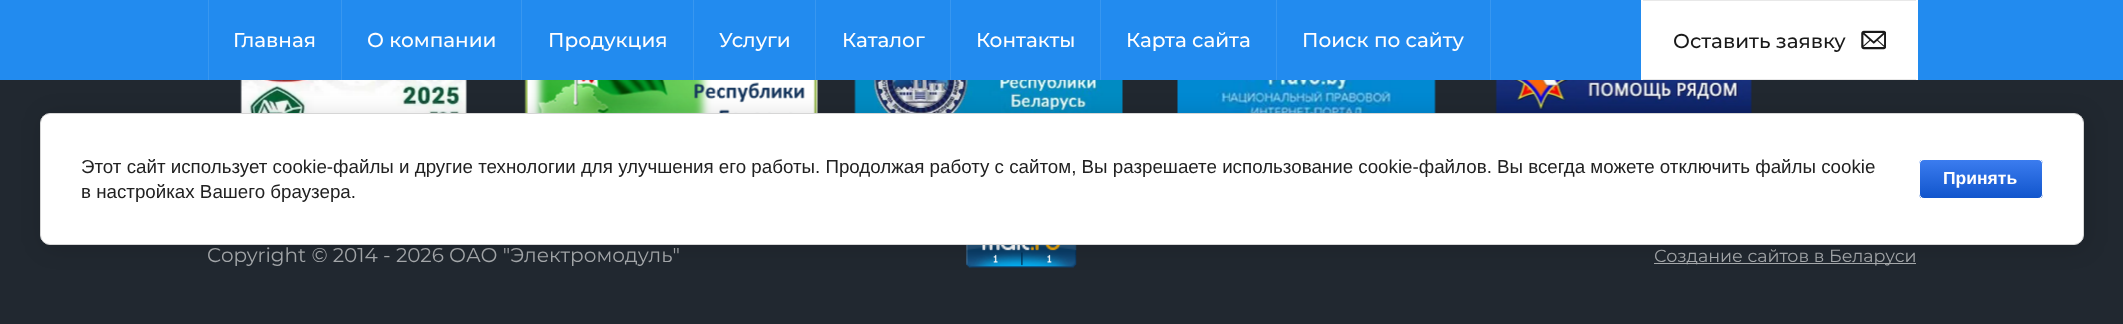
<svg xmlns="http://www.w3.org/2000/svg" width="2123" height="324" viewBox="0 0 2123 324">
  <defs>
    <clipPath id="clip1"><rect x="1919" y="159" width="124" height="40" rx="5"/></clipPath>
    <linearGradient id="g1" gradientUnits="userSpaceOnUse" x1="1981" y1="160" x2="1981" y2="198"><stop offset="0" stop-color="rgb(59,124,239)"/><stop offset="1" stop-color="rgb(17,85,204)"/></linearGradient>
  </defs>
  <rect width="100%" height="100%" fill="rgb(33,40,48)"/>
  <rect x="0" y="0" width="2123" height="80" fill="rgb(34,139,239)"/>
  <rect x="208" y="0" width="1" height="80" fill="rgb(56,151,240)"/>
  <rect x="341" y="0" width="1" height="80" fill="rgb(56,151,240)"/>
  <text x="233" y="47" font-family="Montserrat" font-size="20" font-weight="500" fill="rgb(255,254,254)">Главная</text>
  <rect x="521" y="0" width="1" height="80" fill="rgb(56,151,240)"/>
  <text x="367" y="47" font-family="Montserrat" font-size="20" font-weight="500" fill="rgb(255,254,254)">О компании</text>
  <rect x="693" y="0" width="1" height="80" fill="rgb(56,151,240)"/>
  <text x="548" y="47" font-family="Montserrat" font-size="20" font-weight="500" fill="rgb(255,254,254)">Продукция</text>
  <rect x="815" y="0" width="1" height="80" fill="rgb(56,151,240)"/>
  <text x="719" y="47" font-family="Montserrat" font-size="20" font-weight="500" fill="rgb(255,254,254)">Услуги</text>
  <rect x="950" y="0" width="1" height="80" fill="rgb(56,151,240)"/>
  <text x="842" y="47" font-family="Montserrat" font-size="20" font-weight="500" fill="rgb(255,254,254)">Каталог</text>
  <rect x="1100" y="0" width="1" height="80" fill="rgb(56,151,240)"/>
  <text x="976" y="47" font-family="Montserrat" font-size="20" font-weight="500" fill="rgb(255,254,254)">Контакты</text>
  <rect x="1276" y="0" width="1" height="80" fill="rgb(56,151,240)"/>
  <text x="1126" y="47" font-family="Montserrat" font-size="20" font-weight="500" fill="rgb(255,254,254)">Карта сайта</text>
  <rect x="1490" y="0" width="1" height="80" fill="rgb(56,151,240)"/>
  <text x="1302" y="47" font-family="Montserrat" font-size="20" font-weight="500" fill="rgb(255,254,254)">Поиск по сайту</text>
  <rect x="1641" y="0" width="277" height="80" fill="rgb(255,255,255)"/>
  <rect x="1643" y="0" width="273" height="1" fill="rgb(232,232,232)"/>
  <rect x="1643" y="79" width="273" height="1" fill="rgb(232,232,232)"/>
  <text x="1673" y="48" font-family="Montserrat" font-size="20" font-weight="500" fill="rgb(26,26,26)">Оставить заявку</text>
  <image x="1861" y="30" width="25" height="20" href="pic1.png"/>
  <image x="240" y="80" width="227" height="33" href="pic2.png"/>
  <image x="524" y="80" width="294" height="33" href="pic3.png"/>
  <image x="854" y="80" width="269" height="33" href="pic4.png"/>
  <image x="1177" y="80" width="259" height="33" href="pic5.png"/>
  <image x="1495" y="80" width="257" height="33" href="pic6.png"/>
  <text x="207" y="262" font-family="Montserrat" font-size="20" fill="rgb(166,169,172)">Copyright © 2014 - 2026 ОАО "Электромодуль"</text>
  <image x="966" y="245" width="111" height="23" href="pic7.png"/>
  <rect x="1654" y="263" width="262" height="1" fill="rgb(166,169,172)"/>
  <text x="1654" y="262" font-family="Montserrat" font-size="17.5" fill="rgb(166,169,172)">Создание сайтов в Беларуси</text>
  <rect x="43" y="115" width="2043" height="133" rx="10" fill="rgba(0,0,0,0.14)" filter="blur(11px)"/>
  <rect x="40.5" y="113.5" width="2043" height="131" rx="9.5" fill="rgb(255,255,255)" stroke="rgb(214,214,214)"/>
  <g font-family="Liberation Sans" font-size="18.75" fill="rgb(33,33,33)">
    <text>
      <tspan x="81" y="173">Этот сайт использует cookie-файлы и другие технологии для улучшения его работы. Продолжая работу с сайтом, Вы разрешаете использование cookie-файлов. Вы всегда можете отключить файлы cookie</tspan>
      <tspan x="81" y="198">в настройках Вашего браузера.</tspan>
    </text>
  </g>
  <g clip-path="url(#clip1)">
    <rect x="1919" y="160" width="124" height="38" fill="url(#g1)"/>
  </g>
  <rect x="1919.5" y="159.5" width="123" height="39" rx="4.5" fill="none" stroke="rgb(255,255,255)"/>
  <text x="1943" y="184" font-family="Liberation Sans" font-size="17.5" font-weight="bold" fill="rgb(255,254,254)">Принять</text>
</svg>
